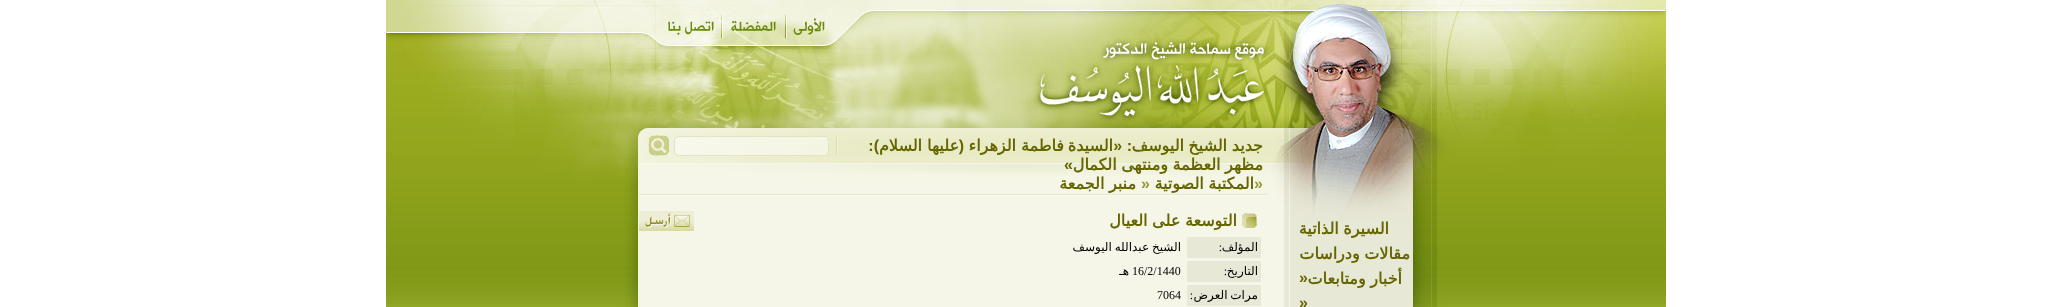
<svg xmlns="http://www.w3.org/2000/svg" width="2052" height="307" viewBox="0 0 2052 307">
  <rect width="100%" height="100%" fill="rgb(255,255,255)"/>
  <image x="386" y="0" width="1280" height="307" href="pic1.png"/>
  <image x="785" y="15" width="43" height="23" href="pic2.png"/>
  <image x="721" y="6" width="57" height="32" href="pic3.png"/>
  <image x="663" y="1" width="58" height="37" href="pic4.png"/>
  <g font-family="DejaVu Sans" font-size="16" font-weight="bold" direction="rtl" fill="rgb(102,102,0)">
    <text x="1263" y="151">جديد</text>
    <text x="1227" y="151">الشيخ</text>
    <text x="1184" y="151">اليوسف</text>
  </g>
  <text x="1132" y="151" font-family="Liberation Sans" font-size="16" font-weight="bold" direction="rtl" fill="rgb(102,102,0)">: «</text>
  <g font-family="DejaVu Sans" font-size="16" font-weight="bold" direction="rtl" fill="rgb(102,102,0)">
    <text x="1113" y="151">السيدة</text>
    <text x="1064" y="151">فاطمة</text>
    <text x="1016" y="151">الزهراء</text>
  </g>
  <text x="964" y="151" font-family="Liberation Sans" font-size="16" font-weight="bold" direction="rtl" fill="rgb(102,102,0)">(</text>
  <g font-family="DejaVu Sans" font-size="16" font-weight="bold" direction="rtl" fill="rgb(102,102,0)">
    <text x="959" y="151">عليها</text>
    <text x="922" y="151">السلام</text>
  </g>
  <text x="879" y="151" font-family="Liberation Sans" font-size="16" font-weight="bold" direction="rtl" fill="rgb(102,102,0)">):</text>
  <text x="1263" y="170" word-spacing="-0.5" font-family="DejaVu Sans" font-size="16" font-weight="bold" direction="rtl" fill="rgb(102,102,0)">مظهر العظمة ومنتهى الكمال</text>
  <text x="1073" y="170" font-family="Liberation Sans" font-size="16" font-weight="bold" direction="rtl" fill="rgb(102,102,0)">»</text>
  <image x="648" y="135" width="21" height="21" href="pic5.png"/>
  <g font-family="DejaVu Sans" font-size="16" font-weight="bold" direction="rtl" fill="rgb(102,102,0)">
    <text x="1389" y="234" word-spacing="-0.5">السيرة الذاتية</text>
    <text x="1410" y="259" word-spacing="-0.5">مقالات ودراسات</text>
    <text x="1402" y="284" word-spacing="-0.5">أخبار ومتابعات</text>
  </g>
  <g font-family="Liberation Sans" font-size="16" font-weight="bold" fill="rgb(102,102,0)">
    <text>
      <tspan x="1299" y="283">»</tspan>
      <tspan x="1299" y="308">»</tspan>
    </text>
  </g>
  <image x="639" y="194" width="628" height="2" href="pic6.png"/>
  <text x="1254" y="189" font-family="Liberation Sans" font-size="16" font-weight="bold" fill="rgb(153,153,51)">»</text>
  <text x="1254" y="189" word-spacing="-0.5" font-family="DejaVu Sans" font-size="16" font-weight="bold" direction="rtl" fill="rgb(102,102,0)">المكتبة الصوتية</text>
  <text x="1141" y="189" font-family="Liberation Sans" font-size="16" font-weight="bold" fill="rgb(153,153,51)">»</text>
  <text x="1136" y="189" word-spacing="-0.5" font-family="DejaVu Sans" font-size="16" font-weight="bold" direction="rtl" fill="rgb(102,102,0)">منبر الجمعة</text>
  <image x="1242" y="213" width="15" height="15" href="pic7.png"/>
  <text x="1237" y="226" word-spacing="-0.5" font-family="DejaVu Sans" font-size="16" font-weight="bold" direction="rtl" fill="rgb(102,102,0)">التوسعة على العيال</text>
  <image x="639" y="211" width="55" height="20" href="pic8.png"/>
  <rect x="1187" y="237" width="74" height="21" fill="rgb(231,232,214)"/>
  <text x="1258" y="251" font-family="DejaVu Sans" font-size="12" direction="rtl" fill="rgb(0,0,0)">المؤلف</text>
  <text x="1222" y="251" font-family="Liberation Serif" font-size="12" direction="rtl" fill="rgb(0,0,0)">:</text>
  <text x="1181" y="251" word-spacing="-1" font-family="DejaVu Sans" font-size="12" direction="rtl" fill="rgb(0,0,0)">الشيخ عبدالله اليوسف</text>
  <rect x="1187" y="261" width="74" height="21" fill="rgb(231,232,214)"/>
  <text x="1258" y="275" font-family="DejaVu Sans" font-size="12" direction="rtl" fill="rgb(0,0,0)">التاريخ</text>
  <text x="1227" y="275" font-family="Liberation Serif" font-size="12" direction="rtl" fill="rgb(0,0,0)">:</text>
  <text x="1132" y="275" font-family="Liberation Serif" font-size="12" fill="rgb(0,0,0)">16/2/1440</text>
  <text x="1129" y="275" font-family="DejaVu Sans" font-size="12" direction="rtl" fill="rgb(0,0,0)">هـ</text>
  <rect x="1187" y="285" width="74" height="21" fill="rgb(231,232,214)"/>
  <text x="1258" y="299" word-spacing="-1" font-family="DejaVu Sans" font-size="12" direction="rtl" fill="rgb(0,0,0)">مرات العرض</text>
  <text x="1193" y="299" font-family="Liberation Serif" font-size="12" direction="rtl" fill="rgb(0,0,0)">:</text>
  <text x="1157" y="299" font-family="Liberation Serif" font-size="12" fill="rgb(0,0,0)">7064</text>
</svg>
